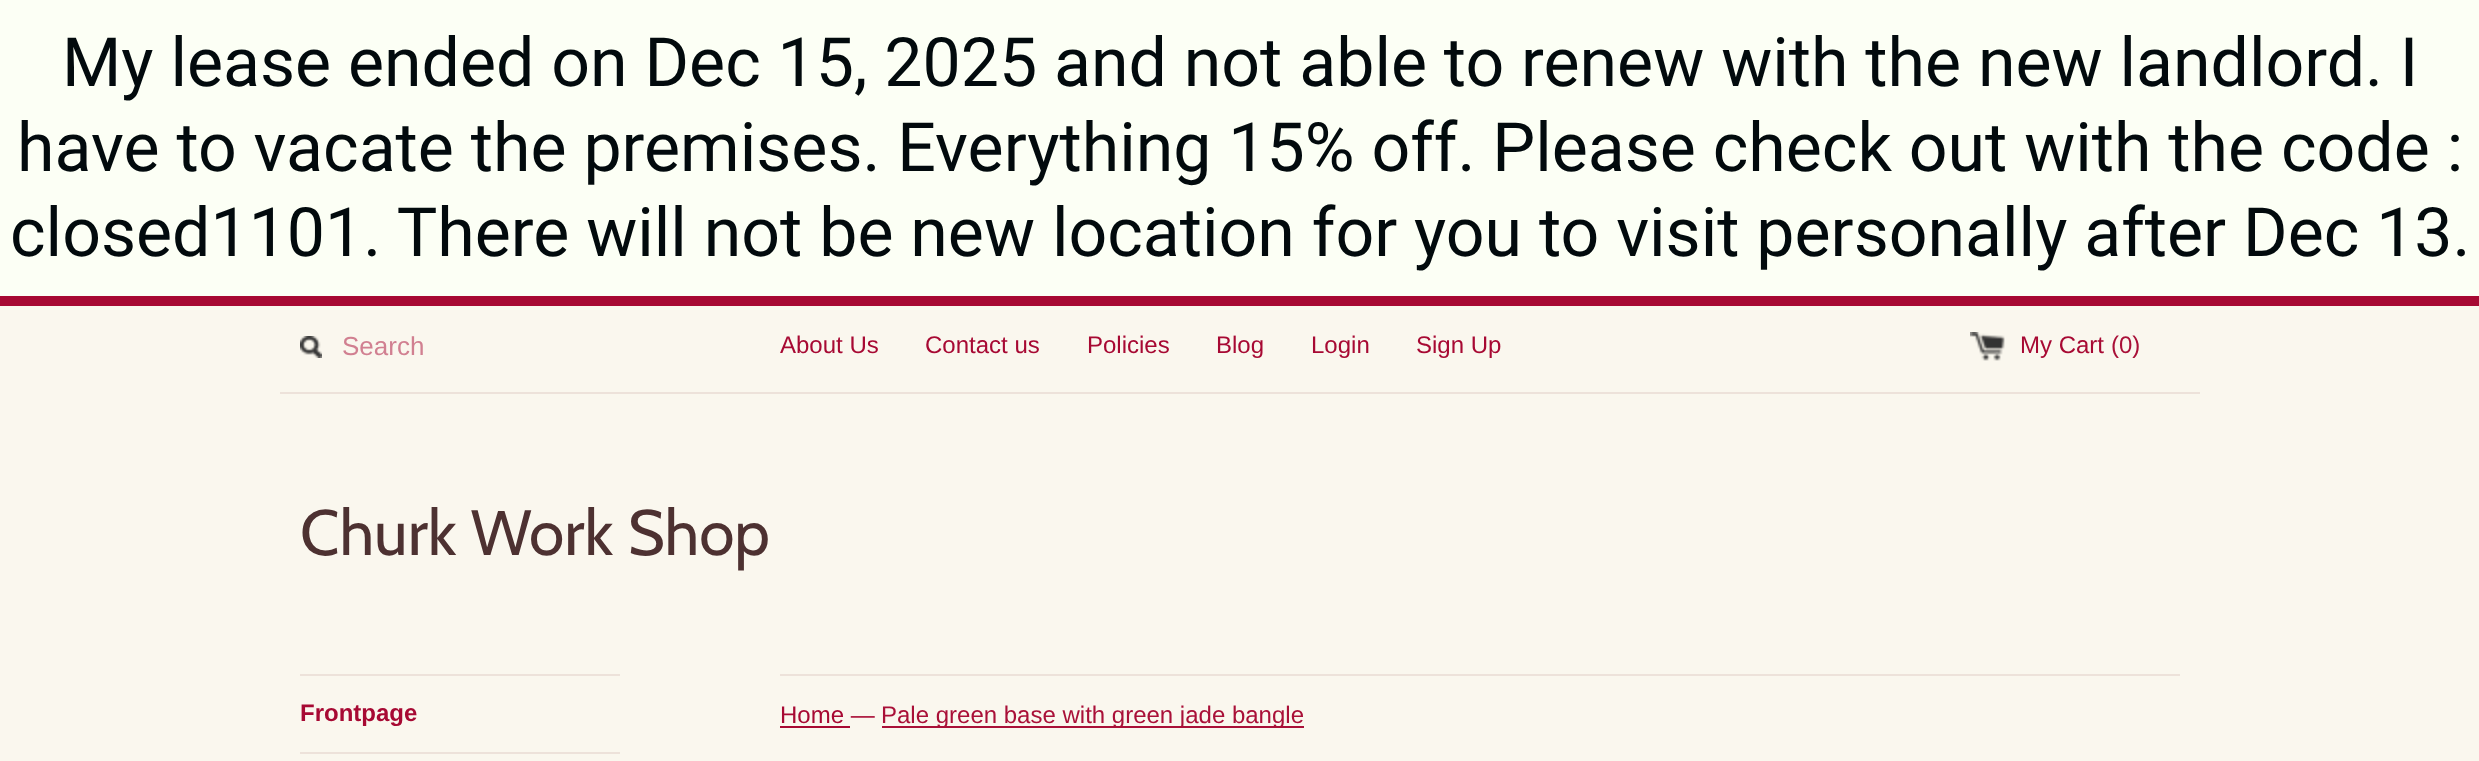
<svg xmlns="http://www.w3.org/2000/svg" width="2479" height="761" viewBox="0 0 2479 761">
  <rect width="100%" height="100%" fill="rgb(250,247,238)"/>
  <rect x="0" y="0" width="2479" height="296" fill="rgb(252,255,245)"/>
  <g font-family="Roboto" font-size="68" fill="rgb(2,10,13)">
    <text x="62" y="86">My lease ended on Dec 15, 2025 and not able to renew with the new landlord. I</text>
    <text x="17" y="171">have to vacate the premises. Everything 15% off. Please check out with the code :</text>
    <text x="10" y="256">closed1101. There will not be new location for you to visit personally after Dec 13.</text>
  </g>
  <rect x="0" y="296" width="2479" height="10" fill="rgb(167,9,51)"/>
  <rect x="280" y="392" width="1920" height="2" fill="rgb(237,226,218)"/>
  <image x="300" y="336" width="22" height="22" href="pic1.png"/>
  <text x="342" y="355" font-family="Liberation Sans" font-size="26" fill="rgb(209,128,145)">Search</text>
  <g font-family="Liberation Sans" font-size="24" fill="rgb(167,9,51)">
    <text x="780" y="353">About Us</text>
    <text x="925" y="353">Contact us</text>
    <text x="1087" y="353">Policies</text>
    <text x="1216" y="353">Blog</text>
    <text x="1311" y="353">Login</text>
    <text x="1416" y="353">Sign Up</text>
  </g>
  <image x="1970" y="332" width="35" height="29" href="pic2.png"/>
  <text x="2020" y="353" font-family="Liberation Sans" font-size="24" fill="rgb(167,9,51)">My Cart</text>
  <text x="2111" y="353" font-family="Liberation Sans" font-size="24" fill="rgb(169,16,56)">(0)</text>
  <text x="300" y="555" font-family="Cabin" font-size="64" fill="rgb(77,49,49)">Churk Work Shop</text>
  <rect x="300" y="674" width="320" height="2" fill="rgb(237,226,218)"/>
  <text x="300" y="721" font-family="Liberation Sans" font-size="24" font-weight="bold" fill="rgb(167,9,51)">Frontpage</text>
  <rect x="300" y="752" width="320" height="2" fill="rgb(237,226,218)"/>
  <rect x="780" y="674" width="1400" height="2" fill="rgb(237,226,218)"/>
  <text x="780" y="723" font-family="Liberation Sans" font-size="24" fill="rgb(167,9,51)">Home —</text>
  <rect x="780" y="726" width="70" height="2" fill="rgb(167,9,51)"/>
  <rect x="882" y="726" width="422" height="2" fill="rgb(169,16,56)"/>
  <text x="881" y="723" font-family="Liberation Sans" font-size="24" fill="rgb(169,16,56)">Pale green base with green jade bangle</text>
</svg>
